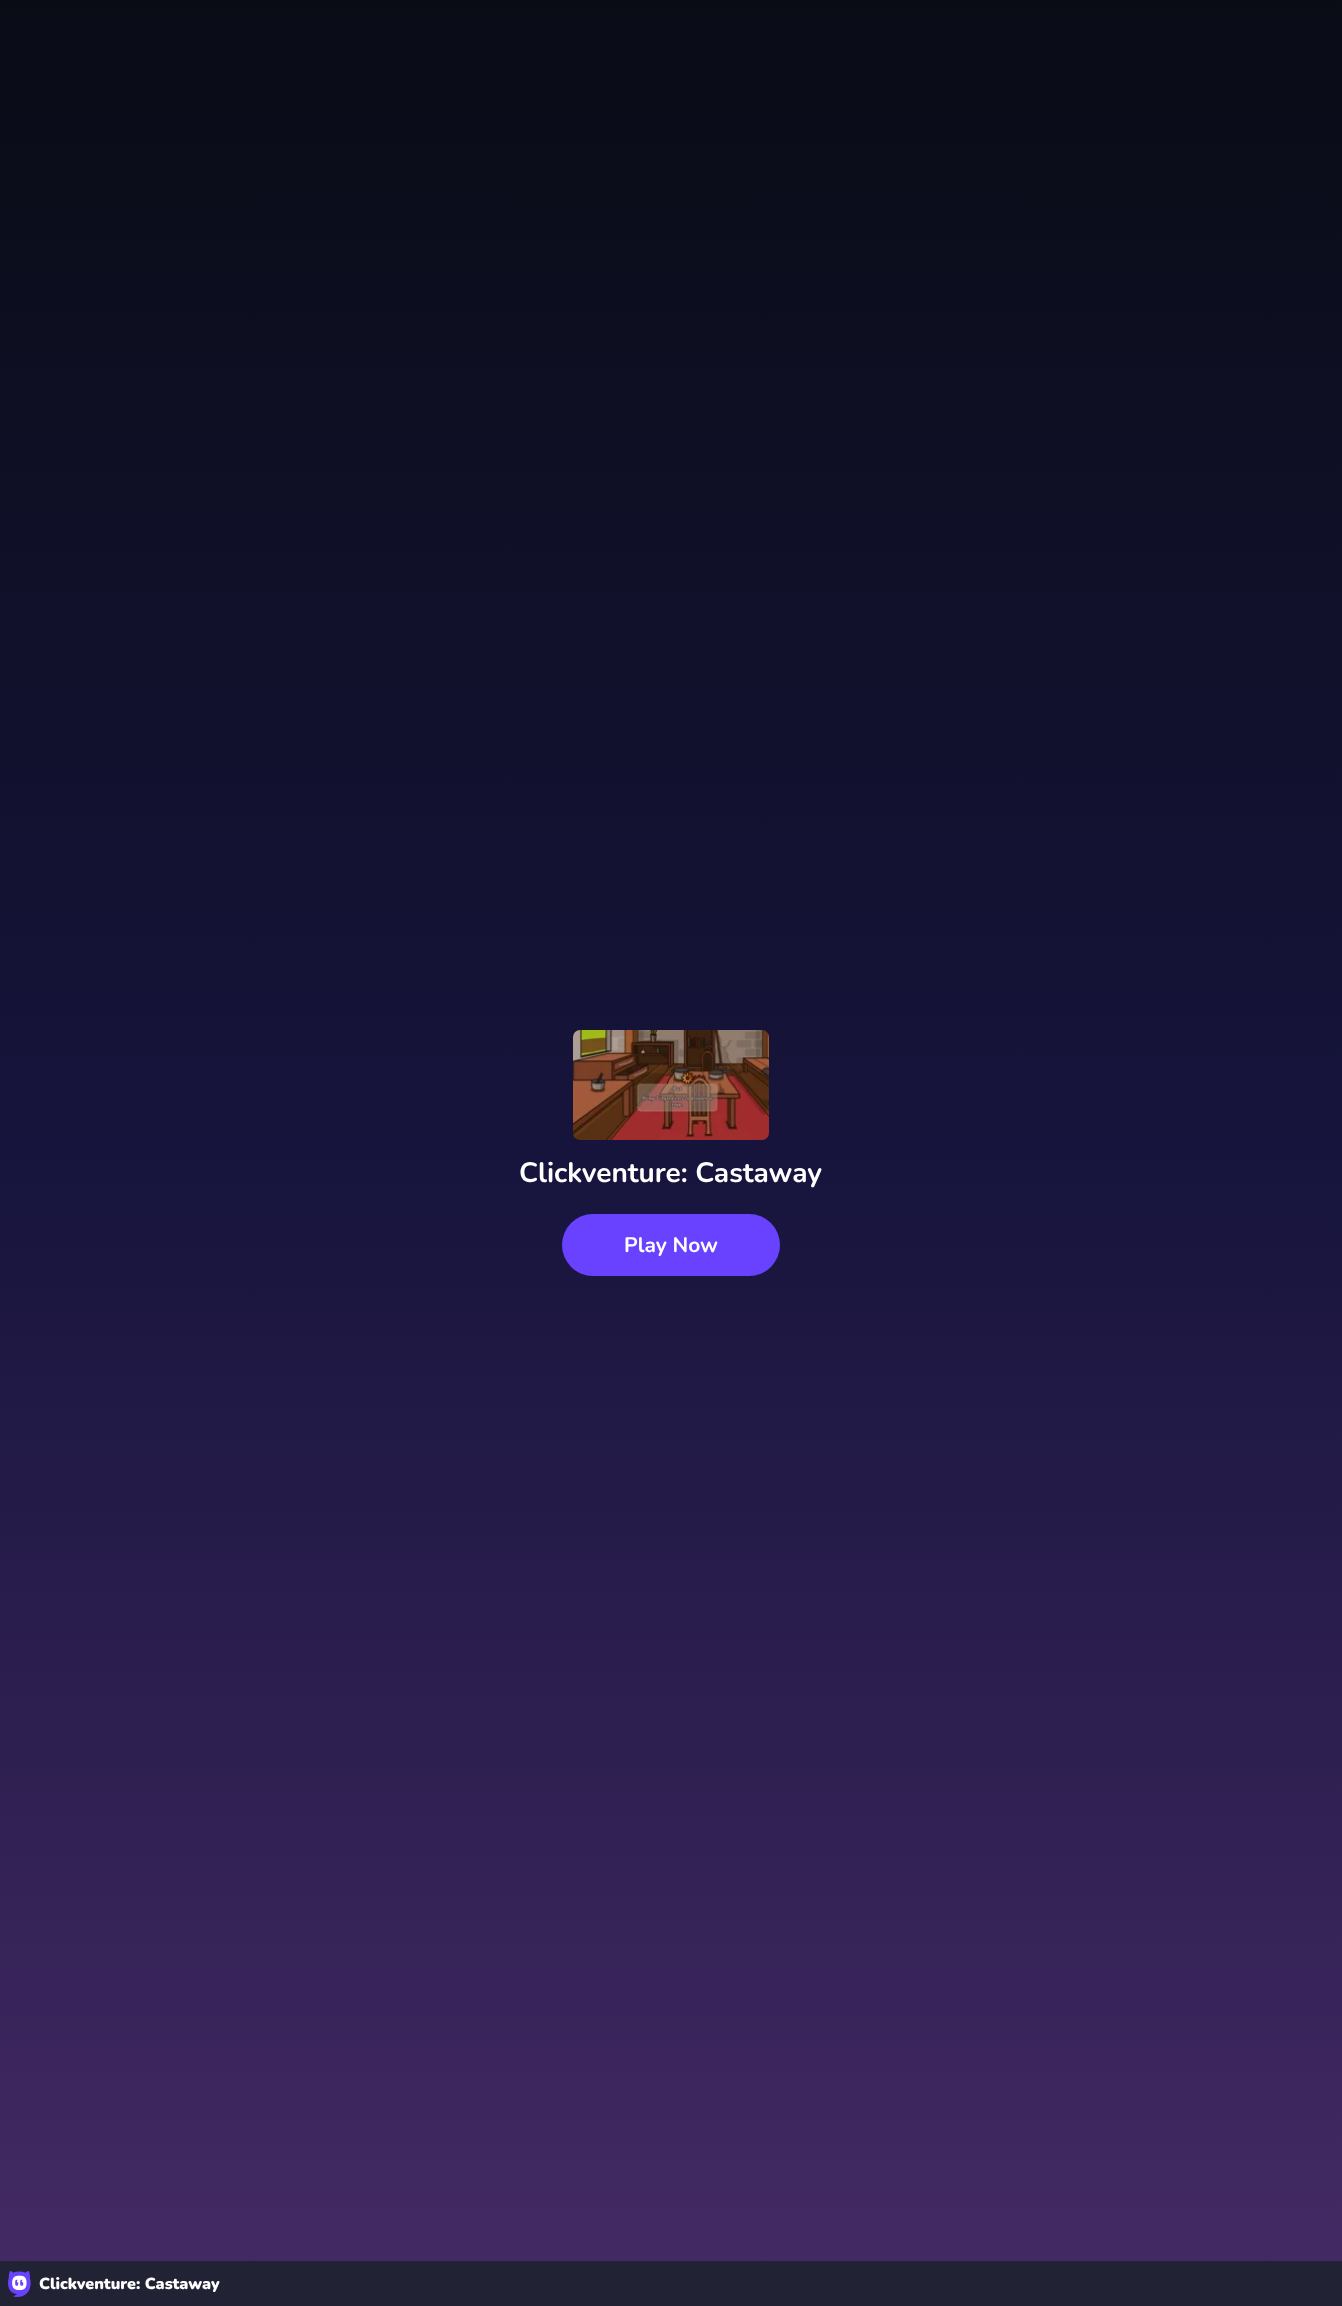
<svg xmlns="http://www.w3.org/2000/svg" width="1342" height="2306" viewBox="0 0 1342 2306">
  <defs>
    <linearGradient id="g1" gradientUnits="userSpaceOnUse" x1="671" y1="0" x2="671" y2="2306"><stop offset="0" stop-color="rgb(9,12,21)"/><stop offset="0.5" stop-color="rgb(22,20,60)"/><stop offset="1" stop-color="rgb(69,42,101)"/></linearGradient>
  </defs>
  <rect width="100%" height="100%" fill="rgb(255,255,255)"/>
  <rect x="0" y="0" width="1342" height="2261" fill="url(#g1)"/>
  <image x="573" y="1030" width="196" height="110" href="pic1.png"/>
  <text x="519" y="1182" font-family="Nunito" font-size="28" font-weight="bold" fill="rgb(255,255,255)">Clickventure: Castaway</text>
  <rect x="562" y="1214" width="218" height="62" rx="31" fill="rgb(104,66,255)"/>
  <text x="624" y="1252" font-family="Nunito" font-size="21" font-weight="bold" fill="rgb(255,255,255)">Play Now</text>
  <rect x="0" y="2261" width="1342" height="45" fill="rgb(33,34,51)"/>
  <image x="8" y="2271" width="23" height="26" href="pic2.png"/>
  <text x="39" y="2289" font-family="Nunito" font-size="16" font-weight="900" fill="rgb(255,255,255)">Clickventure: Castaway</text>
</svg>
